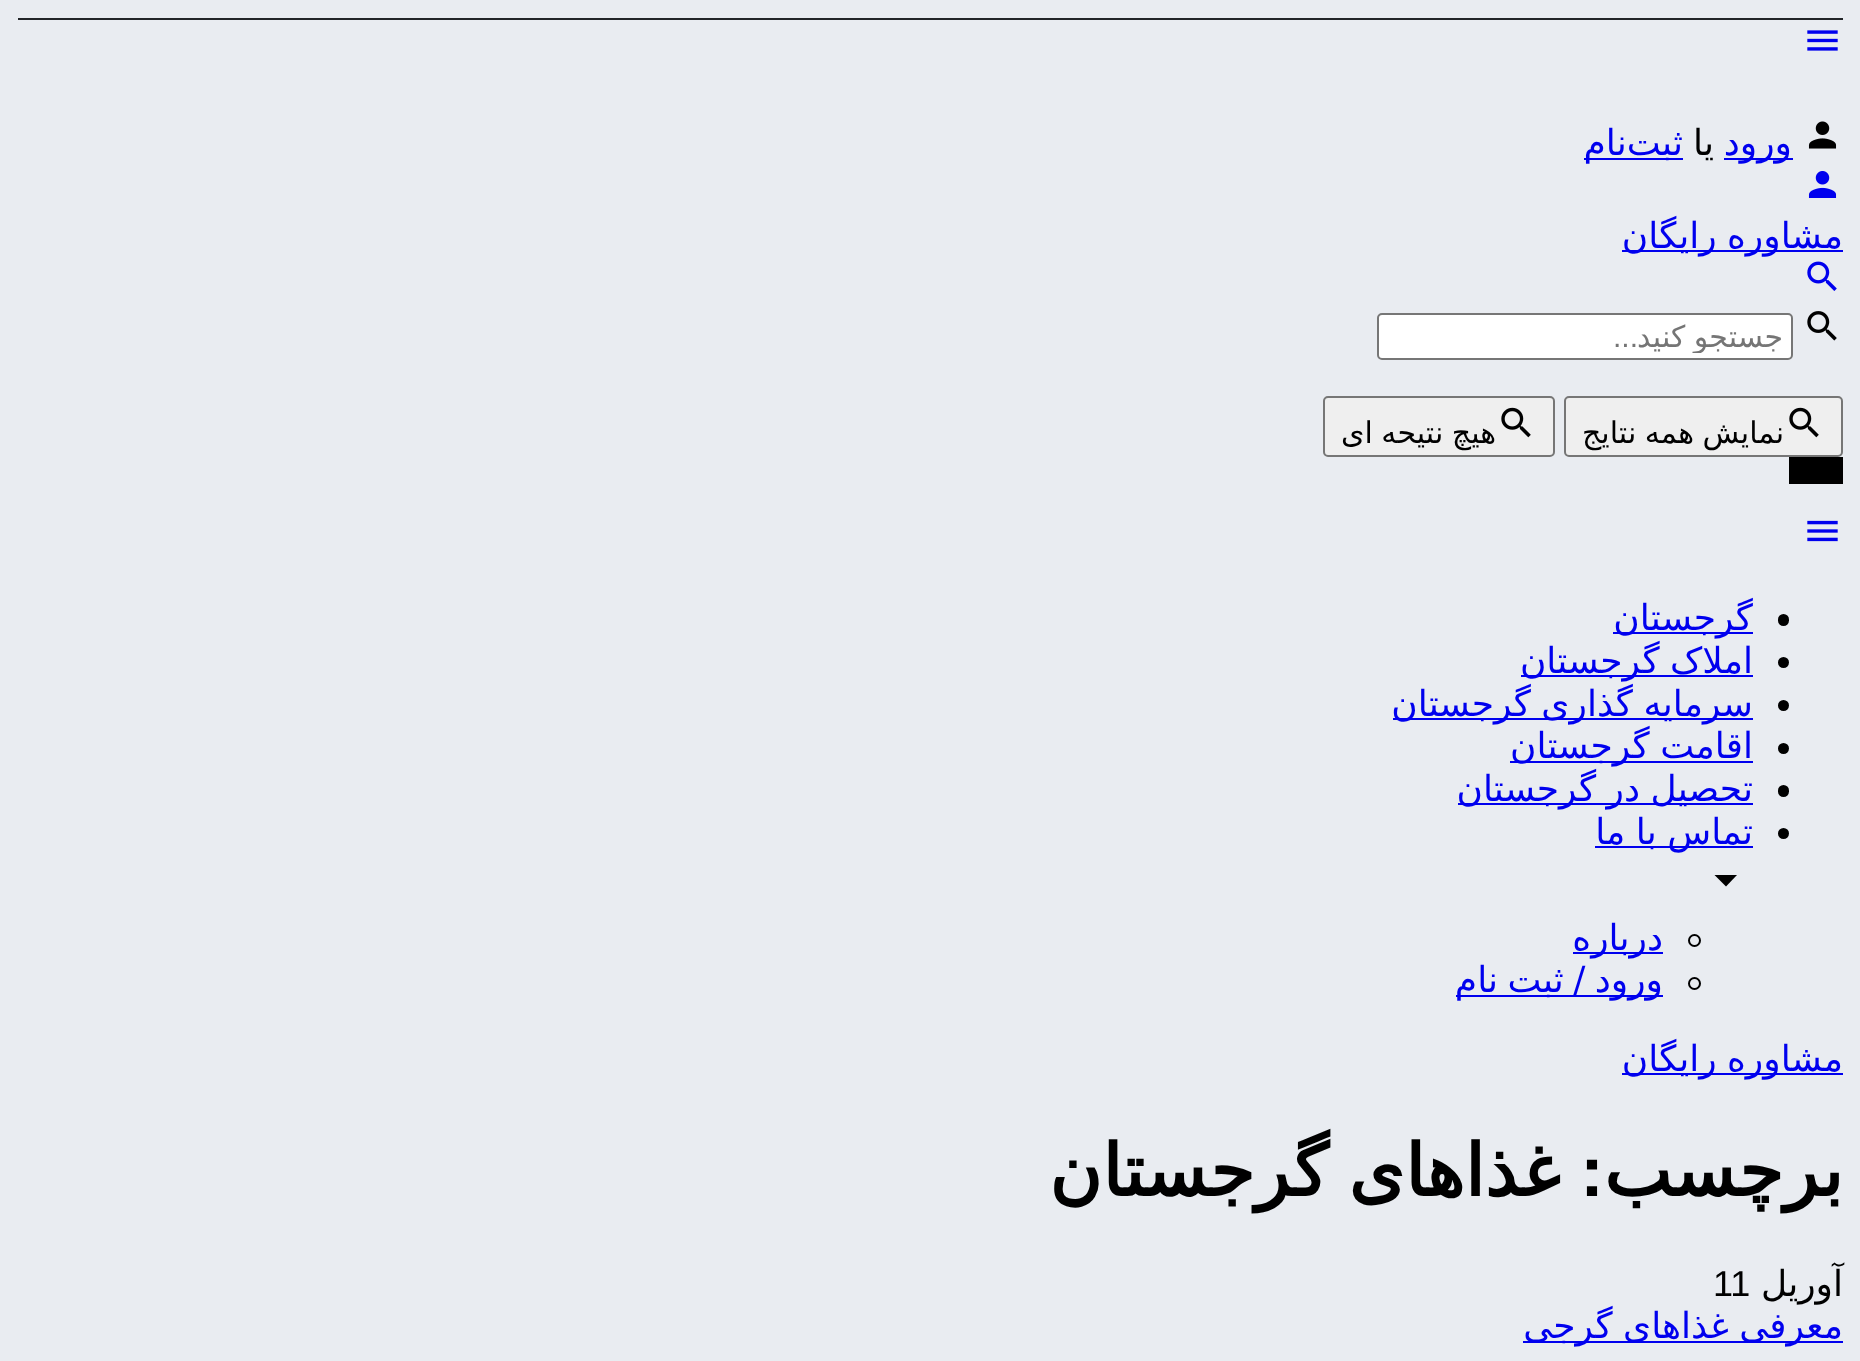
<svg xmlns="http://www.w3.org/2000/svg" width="1860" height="1361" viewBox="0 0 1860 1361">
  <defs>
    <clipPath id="clip1"><rect x="1415" y="320" width="369" height="33"/></clipPath>
  </defs>
  <rect width="100%" height="100%" fill="rgb(233,236,241)"/>
  <rect x="18" y="18" width="1825" height="2" fill="rgb(34,37,40)"/>
  <image x="1807" y="30" width="31" height="21" href="pic1.png"/>
  <image x="1808" y="121" width="29" height="28" href="pic2.png"/>
  <rect x="1724" y="158" width="69" height="2" fill="rgb(0,0,238)"/>
  <text x="1792" y="155" font-family="DejaVu Sans" font-size="36" direction="rtl" fill="rgb(0,0,238)">ورود</text>
  <text x="1714" y="155" font-family="DejaVu Sans" font-size="36" direction="rtl" fill="rgb(0,0,0)">یا</text>
  <rect x="1584" y="158" width="99" height="2" fill="rgb(0,0,238)"/>
  <text x="1683" y="155" font-family="DejaVu Sans" font-size="36" direction="rtl" fill="rgb(0,0,238)">ثبت‌نام</text>
  <image x="1808" y="171" width="29" height="27" href="pic3.png"/>
  <rect x="1622" y="250" width="221" height="2" fill="rgb(0,0,238)"/>
  <text x="1843" y="248" word-spacing="-1" font-family="DejaVu Sans" font-size="36" direction="rtl" fill="rgb(0,0,238)">مشاوره رایگان</text>
  <image x="1807" y="261" width="30" height="30" href="pic4.png"/>
  <image x="1807" y="311" width="30" height="30" href="pic5.png"/>
  <rect x="1378" y="314" width="414" height="45" rx="4" fill="rgb(255,255,255)" stroke="rgb(118,118,118)" stroke-width="2"/>
  <g clip-path="url(#clip1)">
    <text x="1783" y="347" word-spacing="-1" font-family="DejaVu Sans" font-size="30" direction="rtl" fill="rgb(117,117,117)">جستجو کنید</text>
  </g>
  <text x="1638" y="347" font-family="Liberation Sans" font-size="30" direction="rtl" fill="rgb(117,117,117)">...</text>
  <rect x="1565" y="397" width="277" height="59" rx="4" fill="rgb(239,239,239)" stroke="rgb(118,118,118)" stroke-width="2"/>
  <image x="1789" y="407" width="30" height="31" href="pic6.png"/>
  <text x="1784" y="443" word-spacing="-1" font-family="DejaVu Sans" font-size="30" direction="rtl" fill="rgb(0,0,0)">نمایش همه نتایج</text>
  <rect x="1324" y="397" width="230" height="59" rx="4" fill="rgb(239,239,239)" stroke="rgb(118,118,118)" stroke-width="2"/>
  <image x="1501" y="407" width="30" height="31" href="pic6.png"/>
  <text x="1496" y="443" word-spacing="-1" font-family="DejaVu Sans" font-size="30" direction="rtl" fill="rgb(0,0,0)">هیچ نتیحه ای</text>
  <rect x="1789" y="457" width="54" height="27" fill="rgb(0,0,0)"/>
  <image x="1807" y="520" width="31" height="22" href="pic7.png"/>
  <rect x="1778" y="614" width="11" height="12" rx="5.5" fill="rgb(0,0,0)"/>
  <rect x="1613" y="632" width="140" height="2" fill="rgb(0,0,238)"/>
  <text x="1753" y="630" font-family="DejaVu Sans" font-size="36" direction="rtl" fill="rgb(0,0,238)">گرجستان</text>
  <circle cx="1783.5" cy="662.5" r="5.5" fill="rgb(0,0,0)"/>
  <rect x="1521" y="675" width="232" height="2" fill="rgb(0,0,238)"/>
  <text x="1753" y="673" word-spacing="-1" font-family="DejaVu Sans" font-size="36" direction="rtl" fill="rgb(0,0,238)">املاک گرجستان</text>
  <circle cx="1783.5" cy="705.5" r="5.5" fill="rgb(0,0,0)"/>
  <rect x="1393" y="718" width="360" height="2" fill="rgb(0,0,238)"/>
  <text x="1753" y="716" word-spacing="-1" font-family="DejaVu Sans" font-size="36" direction="rtl" fill="rgb(0,0,238)">سرمایه گذاری گرجستان</text>
  <circle cx="1783.5" cy="748.5" r="5.5" fill="rgb(0,0,0)"/>
  <rect x="1510" y="761" width="243" height="2" fill="rgb(0,0,238)"/>
  <text x="1753" y="758" word-spacing="-1" font-family="DejaVu Sans" font-size="36" direction="rtl" fill="rgb(0,0,238)">اقامت گرجستان</text>
  <rect x="1778" y="785" width="11" height="12" rx="5.5" fill="rgb(0,0,0)"/>
  <rect x="1458" y="803" width="295" height="2" fill="rgb(0,0,238)"/>
  <text x="1753" y="801" word-spacing="-1" font-family="DejaVu Sans" font-size="36" direction="rtl" fill="rgb(0,0,238)">تحصیل در گرجستان</text>
  <circle cx="1783.5" cy="833.5" r="5.5" fill="rgb(0,0,0)"/>
  <rect x="1595" y="846" width="158" height="2" fill="rgb(0,0,238)"/>
  <text x="1753" y="844" word-spacing="-1" font-family="DejaVu Sans" font-size="36" direction="rtl" fill="rgb(0,0,238)">تماس با ما</text>
  <path d="M1714.5 875H1737L1726 886.5Z" fill="rgb(0,0,0)"/>
  <circle cx="1694.5" cy="940.5" r="5.5" fill="none" stroke="rgb(0,0,0)" stroke-width="2"/>
  <rect x="1573" y="952" width="90" height="2" fill="rgb(0,0,238)"/>
  <text x="1663" y="950" font-family="DejaVu Sans" font-size="36" direction="rtl" fill="rgb(0,0,238)">درباره</text>
  <circle cx="1694.5" cy="983.5" r="5.5" fill="none" stroke="rgb(0,0,0)" stroke-width="2"/>
  <rect x="1456" y="995" width="207" height="2" fill="rgb(0,0,238)"/>
  <text x="1663" y="992" word-spacing="-2" font-family="DejaVu Sans" font-size="36" direction="rtl" fill="rgb(0,0,238)">ورود / ثبت نام</text>
  <rect x="1622" y="1073" width="221" height="2" fill="rgb(0,0,238)"/>
  <text x="1843" y="1071" word-spacing="-1" font-family="DejaVu Sans" font-size="36" direction="rtl" fill="rgb(0,0,238)">مشاوره رایگان</text>
  <text x="1843" y="1196" font-family="DejaVu Sans" font-size="72" font-weight="bold" direction="rtl" fill="rgb(0,0,0)">برچسب</text>
  <text x="1604" y="1196" font-family="Liberation Sans" font-size="72" font-weight="bold" direction="rtl" fill="rgb(0,0,0)">:</text>
  <text x="1560" y="1196" word-spacing="-3" font-family="DejaVu Sans" font-size="72" font-weight="bold" direction="rtl" fill="rgb(0,0,0)">غذاهای گرجستان</text>
  <text x="1843" y="1296" font-family="DejaVu Sans" font-size="36" direction="rtl" fill="rgb(0,0,0)">آوریل</text>
  <text x="1713" y="1296" font-family="Liberation Sans" font-size="36" fill="rgb(0,0,0)">11</text>
  <rect x="1523" y="1341" width="320" height="2" fill="rgb(0,0,238)"/>
  <text x="1843" y="1338" word-spacing="-1" font-family="DejaVu Sans" font-size="36" direction="rtl" fill="rgb(0,0,238)">معرفی غذاهای گرجی</text>
</svg>
